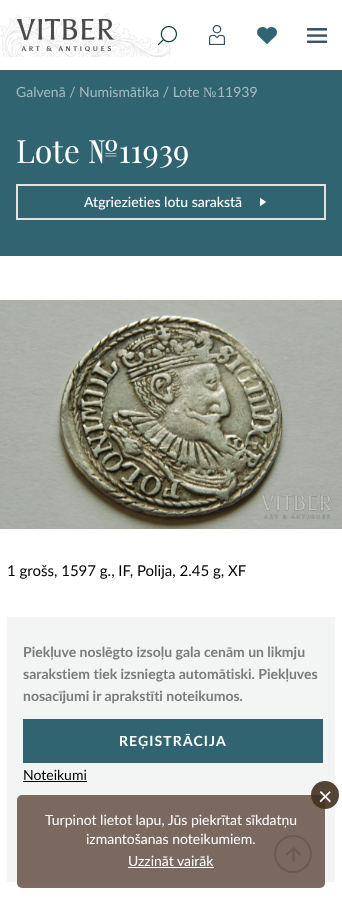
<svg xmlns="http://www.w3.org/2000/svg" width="342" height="903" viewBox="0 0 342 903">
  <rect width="100%" height="100%" fill="rgb(255,255,255)"/>
  <image x="0" y="13" width="171" height="44" href="pic1.png"/>
  <image x="16" y="19" width="99" height="33" href="pic2.png"/>
  <image x="158" y="26" width="19" height="19" href="pic3.png"/>
  <image x="209" y="25" width="16" height="20" href="pic4.png"/>
  <image x="257" y="27" width="20" height="17" href="pic5.png"/>
  <image x="307" y="28" width="20" height="15" href="pic6.png"/>
  <rect x="0" y="70" width="342" height="186" fill="rgb(48,100,112)"/>
  <text x="16" y="97" font-family="Lato" font-size="14" fill="rgb(169,186,192)">Galvenā / Numismātika / Lote</text>
  <text x="203" y="97" font-family="Liberation Serif" font-size="14" fill="rgb(169,186,192)">№</text>
  <text x="217" y="97" font-family="Lato" font-size="14" fill="rgb(169,186,192)">11939</text>
  <text x="16" y="163" font-family="Playfair Display" font-size="32" fill="rgb(255,255,255)">Lote №11939</text>
  <rect x="17" y="185" width="308" height="34" fill="none" stroke="rgb(226,226,226)" stroke-width="2"/>
  <text x="84" y="207" font-family="Lato" font-size="14" font-weight="500" fill="rgb(255,255,255)">Atgriezieties lotu sarakstā</text>
  <image x="260" y="198" width="6" height="8" href="pic7.png"/>
  <image x="0" y="300" width="342" height="229" href="pic8.png"/>
  <text x="7" y="576" font-family="Lato" font-size="15" fill="rgb(0,0,0)">1 grošs, 1597 g., IF, Polija, 2.45 g, XF</text>
  <rect x="7" y="617" width="328" height="265" fill="rgb(243,245,245)"/>
  <g font-family="Lato" font-size="14" font-weight="bold" fill="rgb(122,123,123)">
    <text>
      <tspan x="23" y="657">Piekļuve noslēgto izsoļu gala cenām un likmju</tspan>
      <tspan x="23" y="679">sarakstiem tiek izsniegta automātiski. Piekļuves</tspan>
      <tspan x="23" y="701">nosacījumi ir aprakstīti noteikumos.</tspan>
    </text>
  </g>
  <rect x="23" y="719" width="300" height="44" fill="rgb(48,100,112)"/>
  <text x="119" y="746" font-family="Lato" font-size="14" font-weight="bold" letter-spacing="1.1" fill="rgb(255,255,255)">REĢISTRĀCIJA</text>
  <text x="23" y="780" font-family="Lato" font-size="14" fill="rgb(0,0,0)">Noteikumi</text>
  <rect x="23" y="781" width="64" height="1" fill="rgb(0,0,0)"/>
  <circle cx="293" cy="854" r="18" fill="none" stroke="rgb(48,100,112)" stroke-width="2"/>
  <image x="286" y="847" width="15" height="15" href="pic9.png"/>
  <rect x="17" y="795" width="308" height="93" rx="5" fill="rgba(110,90,80,0.9)"/>
  <circle cx="325" cy="795" r="14" fill="rgba(65,49,30,0.9)"/>
  <text x="318" y="805" font-family="Lato" font-size="25" fill="rgb(255,255,255)">×</text>
  <g font-family="Lato" font-size="14" fill="rgb(255,255,255)">
    <text x="45" y="825">Turpinot lietot lapu, Jūs piekrītat sīkdatņu</text>
    <text x="86" y="844">izmantošanas noteikumiem.</text>
    <text x="128" y="866">Uzzināt vairāk</text>
  </g>
  <rect x="128" y="867" width="86" height="1" fill="rgb(255,255,255)"/>
</svg>
